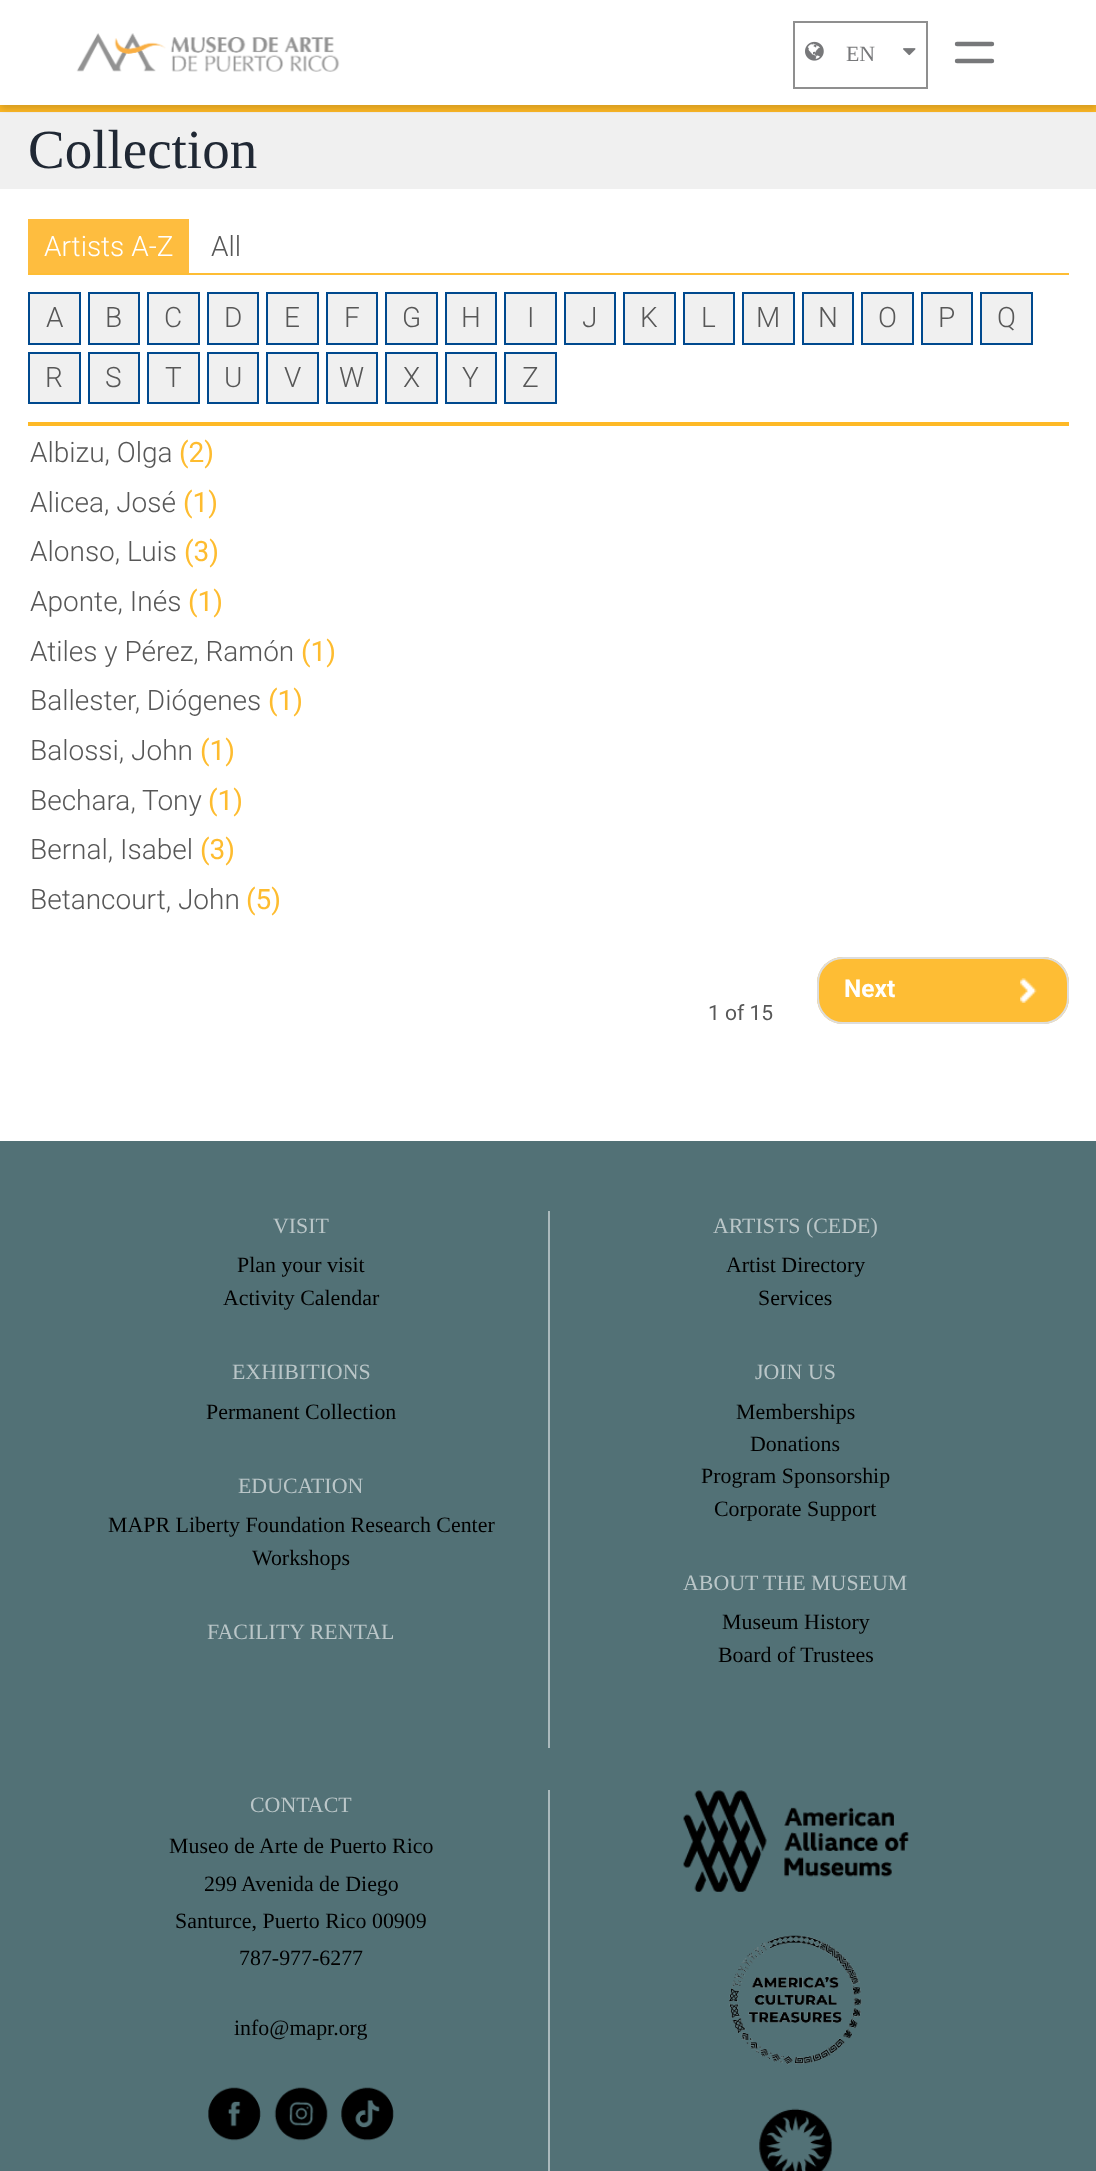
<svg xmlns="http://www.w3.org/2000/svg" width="1096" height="2171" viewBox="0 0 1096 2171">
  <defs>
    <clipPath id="clip1"><rect x="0" y="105" width="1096" height="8"/></clipPath>
  </defs>
  <rect width="100%" height="100%" fill="rgb(255,255,255)"/>
  <rect x="0" y="112" width="1096" height="77" fill="rgb(240,240,240)"/>
  <rect x="0" y="105" width="1096" height="7" fill="rgb(254,185,38)"/>
  <g clip-path="url(#clip1)">
    <rect x="0" y="4" width="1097" height="105" fill="rgba(0,0,0,0.16)" filter="blur(3.5px)"/>
  </g>
  <image x="76" y="33" width="264" height="39" href="pic1.png"/>
  <image x="805" y="41" width="19" height="20" href="pic2.png"/>
  <image x="903" y="48" width="13" height="8" href="pic3.png"/>
  <rect x="794" y="22" width="133" height="66" fill="none" stroke="rgb(143,143,143)" stroke-width="2"/>
  <text x="846" y="61" font-family="Liberation Serif" font-size="21.9" fill="rgb(119,120,122)">EN</text>
  <path d="M957 44H992M957 61H992" fill="none" stroke="rgb(119,120,122)" stroke-width="4.4" stroke-linecap="round" stroke-linejoin="round"/>
  <text x="28" y="168" font-family="Liberation Serif" font-size="55" fill="rgb(32,40,52)">Collection</text>
  <rect x="28" y="273" width="1041" height="2" fill="rgb(254,189,52)"/>
  <rect x="28" y="219" width="161" height="54" fill="rgb(254,189,63)"/>
  <text x="44" y="256" font-family="Roboto" font-size="28" font-weight="300" fill="rgb(255,255,255)">Artists A-Z</text>
  <text x="211" y="256" font-family="Roboto" font-size="28" font-weight="300" fill="rgb(87,87,87)">All</text>
  <rect x="28" y="422" width="1041" height="4" fill="rgb(254,185,38)"/>
  <rect x="29" y="293" width="51" height="51" fill="rgb(240,240,240)" stroke="rgb(0,73,142)" stroke-width="2"/>
  <text x="46" y="327" font-family="Roboto" font-size="28" font-weight="300" fill="rgb(87,87,87)">A</text>
  <rect x="89" y="293" width="50" height="51" fill="rgb(240,240,240)" stroke="rgb(0,73,142)" stroke-width="2"/>
  <text x="105" y="327" font-family="Roboto" font-size="28" font-weight="300" fill="rgb(87,87,87)">B</text>
  <rect x="148" y="293" width="51" height="51" fill="rgb(240,240,240)" stroke="rgb(0,73,142)" stroke-width="2"/>
  <text x="164" y="327" font-family="Roboto" font-size="28" font-weight="300" fill="rgb(87,87,87)">C</text>
  <rect x="208" y="293" width="50" height="51" fill="rgb(240,240,240)" stroke="rgb(0,73,142)" stroke-width="2"/>
  <text x="224" y="327" font-family="Roboto" font-size="28" font-weight="300" fill="rgb(87,87,87)">D</text>
  <rect x="267" y="293" width="51" height="51" fill="rgb(240,240,240)" stroke="rgb(0,73,142)" stroke-width="2"/>
  <text x="284" y="327" font-family="Roboto" font-size="28" font-weight="300" fill="rgb(87,87,87)">E</text>
  <rect x="327" y="293" width="50" height="51" fill="rgb(240,240,240)" stroke="rgb(0,73,142)" stroke-width="2"/>
  <text x="344" y="327" font-family="Roboto" font-size="28" font-weight="300" fill="rgb(87,87,87)">F</text>
  <rect x="386" y="293" width="51" height="51" fill="rgb(240,240,240)" stroke="rgb(0,73,142)" stroke-width="2"/>
  <text x="402" y="327" font-family="Roboto" font-size="28" font-weight="300" fill="rgb(87,87,87)">G</text>
  <rect x="446" y="293" width="50" height="51" fill="rgb(240,240,240)" stroke="rgb(0,73,142)" stroke-width="2"/>
  <text x="461" y="327" font-family="Roboto" font-size="28" font-weight="300" fill="rgb(87,87,87)">H</text>
  <rect x="505" y="293" width="51" height="51" fill="rgb(240,240,240)" stroke="rgb(0,73,142)" stroke-width="2"/>
  <text x="527" y="327" font-family="Roboto" font-size="28" font-weight="300" fill="rgb(87,87,87)">I</text>
  <rect x="565" y="293" width="50" height="51" fill="rgb(240,240,240)" stroke="rgb(0,73,142)" stroke-width="2"/>
  <text x="582" y="327" font-family="Roboto" font-size="28" font-weight="300" fill="rgb(87,87,87)">J</text>
  <rect x="624" y="293" width="51" height="51" fill="rgb(240,240,240)" stroke="rgb(0,73,142)" stroke-width="2"/>
  <text x="640" y="327" font-family="Roboto" font-size="28" font-weight="300" fill="rgb(87,87,87)">K</text>
  <rect x="684" y="293" width="50" height="51" fill="rgb(240,240,240)" stroke="rgb(0,73,142)" stroke-width="2"/>
  <text x="701" y="327" font-family="Roboto" font-size="28" font-weight="300" fill="rgb(87,87,87)">L</text>
  <rect x="743" y="293" width="51" height="51" fill="rgb(240,240,240)" stroke="rgb(0,73,142)" stroke-width="2"/>
  <text x="756" y="327" font-family="Roboto" font-size="28" font-weight="300" fill="rgb(87,87,87)">M</text>
  <rect x="803" y="293" width="50" height="51" fill="rgb(240,240,240)" stroke="rgb(0,73,142)" stroke-width="2"/>
  <text x="818" y="327" font-family="Roboto" font-size="28" font-weight="300" fill="rgb(87,87,87)">N</text>
  <rect x="862" y="293" width="51" height="51" fill="rgb(240,240,240)" stroke="rgb(0,73,142)" stroke-width="2"/>
  <text x="878" y="327" font-family="Roboto" font-size="28" font-weight="300" fill="rgb(87,87,87)">O</text>
  <rect x="922" y="293" width="50" height="51" fill="rgb(240,240,240)" stroke="rgb(0,73,142)" stroke-width="2"/>
  <text x="938" y="327" font-family="Roboto" font-size="28" font-weight="300" fill="rgb(87,87,87)">P</text>
  <rect x="981" y="293" width="51" height="51" fill="rgb(240,240,240)" stroke="rgb(0,73,142)" stroke-width="2"/>
  <text x="997" y="327" font-family="Roboto" font-size="28" font-weight="300" fill="rgb(87,87,87)">Q</text>
  <rect x="29" y="353" width="51" height="50" fill="rgb(240,240,240)" stroke="rgb(0,73,142)" stroke-width="2"/>
  <text x="45" y="387" font-family="Roboto" font-size="28" font-weight="300" fill="rgb(87,87,87)">R</text>
  <rect x="89" y="353" width="50" height="50" fill="rgb(240,240,240)" stroke="rgb(0,73,142)" stroke-width="2"/>
  <text x="105" y="387" font-family="Roboto" font-size="28" font-weight="300" fill="rgb(87,87,87)">S</text>
  <rect x="148" y="353" width="51" height="50" fill="rgb(240,240,240)" stroke="rgb(0,73,142)" stroke-width="2"/>
  <text x="165" y="387" font-family="Roboto" font-size="28" font-weight="300" fill="rgb(87,87,87)">T</text>
  <rect x="208" y="353" width="50" height="50" fill="rgb(240,240,240)" stroke="rgb(0,73,142)" stroke-width="2"/>
  <text x="224" y="387" font-family="Roboto" font-size="28" font-weight="300" fill="rgb(87,87,87)">U</text>
  <rect x="267" y="353" width="51" height="50" fill="rgb(240,240,240)" stroke="rgb(0,73,142)" stroke-width="2"/>
  <text x="284" y="387" font-family="Roboto" font-size="28" font-weight="300" fill="rgb(87,87,87)">V</text>
  <rect x="327" y="353" width="50" height="50" fill="rgb(240,240,240)" stroke="rgb(0,73,142)" stroke-width="2"/>
  <text x="339" y="387" font-family="Roboto" font-size="28" font-weight="300" fill="rgb(87,87,87)">W</text>
  <rect x="386" y="353" width="51" height="50" fill="rgb(240,240,240)" stroke="rgb(0,73,142)" stroke-width="2"/>
  <text x="403" y="387" font-family="Roboto" font-size="28" font-weight="300" fill="rgb(87,87,87)">X</text>
  <rect x="446" y="353" width="50" height="50" fill="rgb(240,240,240)" stroke="rgb(0,73,142)" stroke-width="2"/>
  <text x="462" y="387" font-family="Roboto" font-size="28" font-weight="300" fill="rgb(87,87,87)">Y</text>
  <rect x="505" y="353" width="51" height="50" fill="rgb(240,240,240)" stroke="rgb(0,73,142)" stroke-width="2"/>
  <g font-family="Roboto" font-size="28" font-weight="300" fill="rgb(87,87,87)">
    <text x="522" y="387">Z</text>
    <text x="30" y="462">Albizu, Olga</text>
  </g>
  <text x="179" y="462" font-family="Roboto" font-size="28" fill="rgb(254,188,47)">(2)</text>
  <text x="30" y="512" font-family="Roboto" font-size="28" font-weight="300" fill="rgb(87,87,87)">Alicea, José</text>
  <text x="183" y="512" font-family="Roboto" font-size="28" fill="rgb(254,188,47)">(1)</text>
  <text x="30" y="561" font-family="Roboto" font-size="28" font-weight="300" fill="rgb(87,87,87)">Alonso, Luis</text>
  <text x="184" y="561" font-family="Roboto" font-size="28" fill="rgb(254,188,47)">(3)</text>
  <text x="30" y="611" font-family="Roboto" font-size="28" font-weight="300" fill="rgb(87,87,87)">Aponte, Inés</text>
  <text x="188" y="611" font-family="Roboto" font-size="28" fill="rgb(254,188,47)">(1)</text>
  <text x="30" y="661" font-family="Roboto" font-size="28" font-weight="300" fill="rgb(87,87,87)">Atiles y Pérez, Ramón</text>
  <text x="301" y="661" font-family="Roboto" font-size="28" fill="rgb(254,188,47)">(1)</text>
  <text x="30" y="710" font-family="Roboto" font-size="28" font-weight="300" fill="rgb(87,87,87)">Ballester, Diógenes</text>
  <text x="268" y="710" font-family="Roboto" font-size="28" fill="rgb(254,188,47)">(1)</text>
  <text x="30" y="760" font-family="Roboto" font-size="28" font-weight="300" fill="rgb(87,87,87)">Balossi, John</text>
  <text x="200" y="760" font-family="Roboto" font-size="28" fill="rgb(254,188,47)">(1)</text>
  <text x="30" y="810" font-family="Roboto" font-size="28" font-weight="300" fill="rgb(87,87,87)">Bechara, Tony</text>
  <text x="208" y="810" font-family="Roboto" font-size="28" fill="rgb(254,188,47)">(1)</text>
  <text x="30" y="859" font-family="Roboto" font-size="28" font-weight="300" fill="rgb(87,87,87)">Bernal, Isabel</text>
  <text x="200" y="859" font-family="Roboto" font-size="28" fill="rgb(254,188,47)">(3)</text>
  <text x="30" y="909" font-family="Roboto" font-size="28" font-weight="300" fill="rgb(87,87,87)">Betancourt, John</text>
  <text x="246" y="909" font-family="Roboto" font-size="28" fill="rgb(254,188,47)">(5)</text>
  <rect x="817" y="957" width="252" height="67" rx="26" fill="rgb(254,189,52)"/>
  <image x="1020" y="978" width="17" height="25" href="pic4.png"/>
  <rect x="818" y="958" width="250" height="65" rx="25" fill="none" stroke="rgb(221,221,221)" stroke-width="2"/>
  <text x="844" y="997" font-family="Roboto" font-size="24.5" font-weight="bold" fill="rgb(255,255,255)">Next</text>
  <text x="708" y="1020" font-family="Roboto" font-size="21" fill="rgb(87,87,87)">1 of 15</text>
  <rect x="0" y="1141" width="1096" height="1030" fill="rgb(82,113,118)"/>
  <rect x="548" y="1211" width="2" height="537" fill="rgb(170,185,188)"/>
  <text x="273" y="1233" font-family="Liberation Serif" font-size="21.9" fill="rgb(186,198,200)">VISIT</text>
  <g font-family="Liberation Serif" font-size="21.9" fill="rgb(0,0,0)">
    <text x="237" y="1272">Plan your visit</text>
    <text x="223" y="1305">Activity Calendar</text>
  </g>
  <text x="232" y="1379" font-family="Liberation Serif" font-size="21.9" fill="rgb(186,198,200)">EXHIBITIONS</text>
  <text x="206" y="1419" font-family="Liberation Serif" font-size="21.9" fill="rgb(0,0,0)">Permanent Collection</text>
  <text x="238" y="1493" font-family="Liberation Serif" font-size="21.9" fill="rgb(186,198,200)">EDUCATION</text>
  <g font-family="Liberation Serif" font-size="21.9" fill="rgb(0,0,0)">
    <text x="108" y="1532">MAPR Liberty Foundation Research Center</text>
    <text x="252" y="1565">Workshops</text>
  </g>
  <g font-family="Liberation Serif" font-size="21.9" fill="rgb(186,198,200)">
    <text x="207" y="1639">FACILITY RENTAL</text>
    <text x="713" y="1233">ARTISTS (CEDE)</text>
  </g>
  <g font-family="Liberation Serif" font-size="21.9" fill="rgb(0,0,0)">
    <text x="726" y="1272">Artist Directory</text>
    <text x="758" y="1305">Services</text>
  </g>
  <text x="755" y="1379" font-family="Liberation Serif" font-size="21.9" fill="rgb(186,198,200)">JOIN US</text>
  <g font-family="Liberation Serif" font-size="21.9" fill="rgb(0,0,0)">
    <text x="736" y="1419">Memberships</text>
    <text x="750" y="1451">Donations</text>
    <text x="701" y="1483">Program Sponsorship</text>
    <text x="714" y="1516">Corporate Support</text>
  </g>
  <text x="683" y="1590" font-family="Liberation Serif" font-size="21.9" fill="rgb(186,198,200)">ABOUT THE MUSEUM</text>
  <g font-family="Liberation Serif" font-size="21.9" fill="rgb(0,0,0)">
    <text x="722" y="1629">Museum History</text>
    <text x="718" y="1662">Board of Trustees</text>
  </g>
  <rect x="548" y="1790" width="2" height="381" fill="rgb(170,185,188)"/>
  <text x="250" y="1812" font-family="Liberation Serif" font-size="21.9" fill="rgb(186,198,200)">CONTACT</text>
  <g font-family="Liberation Serif" font-size="21.9" fill="rgb(0,0,0)">
    <text x="169" y="1853">Museo de Arte de Puerto Rico</text>
    <text x="204" y="1891">299 Avenida de Diego</text>
    <text x="175" y="1928">Santurce, Puerto Rico 00909</text>
    <text x="239" y="1965">787-977-6277</text>
    <text x="234" y="2035">info@mapr.org</text>
  </g>
  <image x="208" y="2087" width="53" height="54" href="pic5.png"/>
  <image x="274" y="2087" width="54" height="54" href="pic6.png"/>
  <image x="341" y="2087" width="53" height="54" href="pic7.png"/>
  <image x="683" y="1790" width="226" height="102" href="pic8.png"/>
  <image x="729" y="1935" width="133" height="130" href="pic9.png"/>
  <image x="759" y="2108" width="73" height="63" href="pic10.png"/>
</svg>
